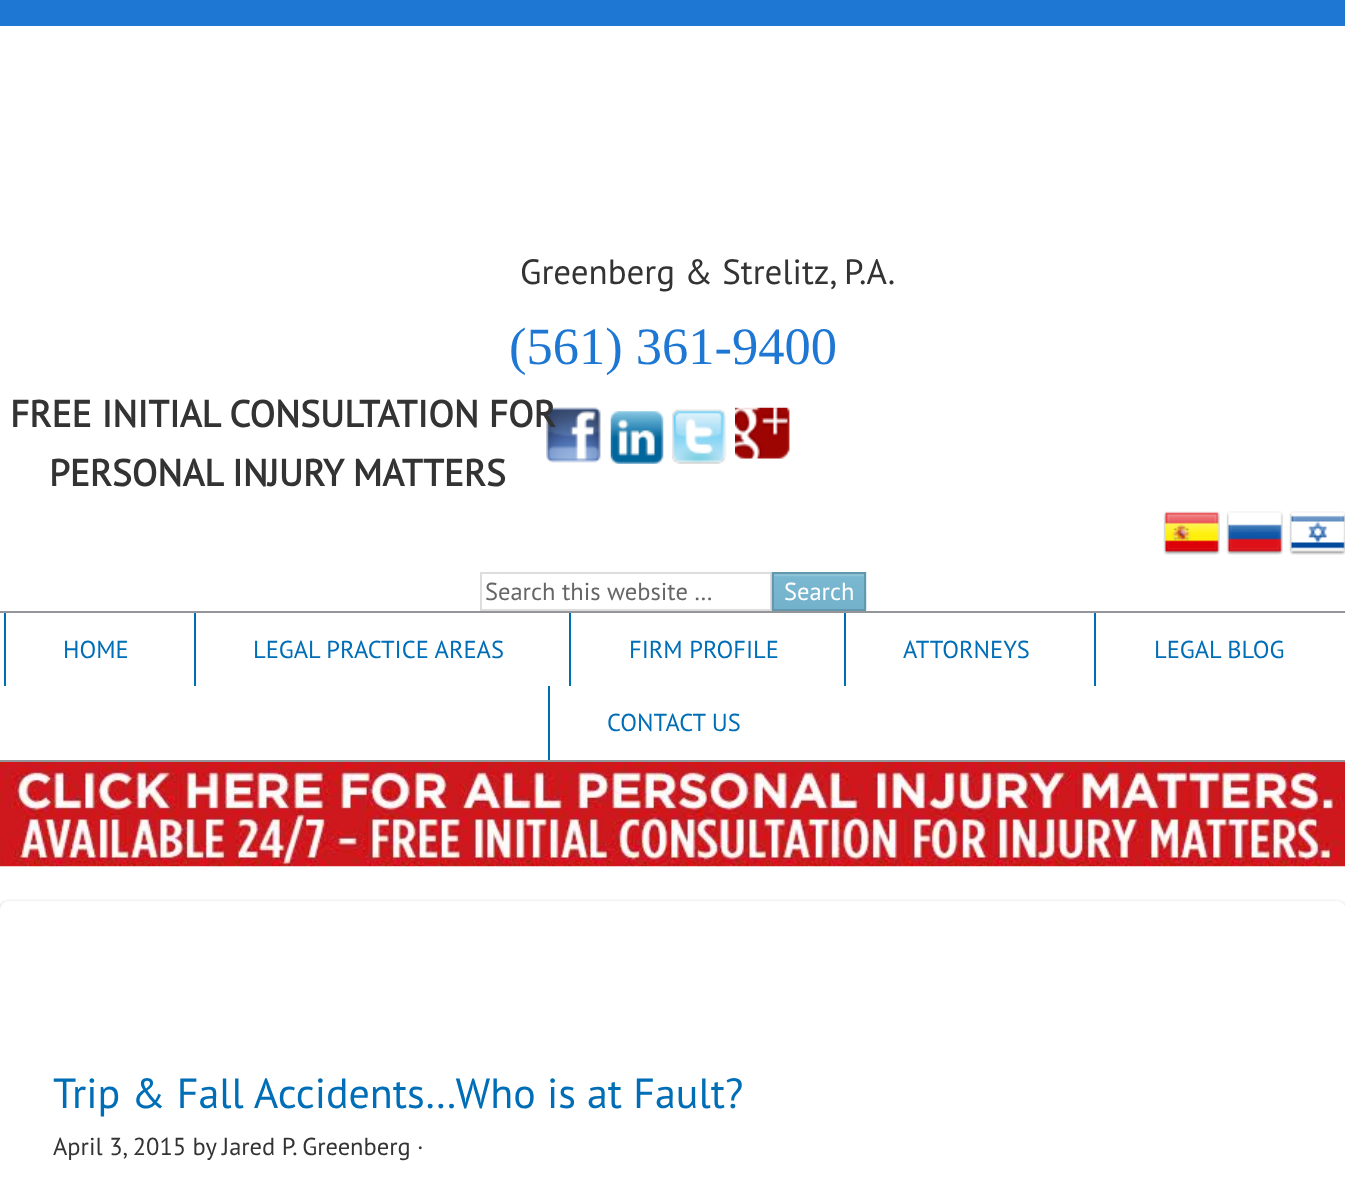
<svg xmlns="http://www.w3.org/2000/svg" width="1345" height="1187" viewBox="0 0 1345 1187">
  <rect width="100%" height="100%" fill="rgb(30,119,211)"/>
  <rect x="0" y="26" width="1345" height="884" fill="rgb(255,255,255)"/>
  <text x="520" y="284" font-family="PT Sans" font-size="35" fill="rgb(51,51,51)">Greenberg &amp; Strelitz, P.A.</text>
  <text x="509" y="364" font-family="Liberation Serif" font-size="52.5" fill="rgb(30,119,211)">(561) 361-9400</text>
  <image x="546" y="407" width="55" height="56" href="pic1.png"/>
  <image x="610" y="411" width="54" height="53" href="pic2.png"/>
  <image x="672" y="409" width="55" height="55" href="pic3.png"/>
  <image x="735" y="407" width="55" height="52" href="pic4.png"/>
  <image x="1163" y="511" width="57" height="44" href="pic5.png"/>
  <image x="1226" y="511" width="57" height="44" href="pic6.png"/>
  <image x="1289" y="511" width="56" height="44" href="pic7.png"/>
  <g font-family="PT Sans" font-size="37.3" font-weight="bold" fill="rgb(51,51,51)">
    <text x="10" y="427">FREE INITIAL CONSULTATION FOR</text>
    <text x="49" y="486">PERSONAL INJURY MATTERS</text>
  </g>
  <rect x="481" y="573" width="290" height="37" fill="none" stroke="rgb(221,221,221)" stroke-width="2"/>
  <text x="485" y="600" font-family="PT Sans" font-size="24.5" fill="rgb(102,102,102)">Search this website …</text>
  <image x="771" y="572" width="96" height="39" href="pic8.png"/>
  <rect x="773" y="573" width="92" height="37" fill="none" stroke="rgb(98,151,173)" stroke-width="2"/>
  <text x="784" y="600" font-family="PT Sans" font-size="24.5" fill="rgb(255,255,255)">Search</text>
  <rect x="0" y="611" width="1345" height="2" fill="rgb(147,149,152)"/>
  <rect x="0" y="760" width="1345" height="2" fill="rgb(147,149,152)"/>
  <rect x="4" y="613" width="2" height="73" fill="rgb(0,110,182)"/>
  <text x="63" y="658" font-family="PT Sans" font-size="24.5" fill="rgb(0,110,182)">HOME</text>
  <rect x="194" y="613" width="2" height="73" fill="rgb(0,110,182)"/>
  <text x="253" y="658" font-family="PT Sans" font-size="24.5" fill="rgb(0,110,182)">LEGAL PRACTICE AREAS</text>
  <rect x="569" y="613" width="2" height="73" fill="rgb(0,110,182)"/>
  <text x="629" y="658" font-family="PT Sans" font-size="24.5" fill="rgb(0,110,182)">FIRM PROFILE</text>
  <rect x="844" y="613" width="2" height="73" fill="rgb(0,110,182)"/>
  <text x="903" y="658" font-family="PT Sans" font-size="24.5" fill="rgb(0,110,182)">ATTORNEYS</text>
  <rect x="1094" y="613" width="2" height="73" fill="rgb(0,110,182)"/>
  <text x="1154" y="658" font-family="PT Sans" font-size="24.5" fill="rgb(0,110,182)">LEGAL BLOG</text>
  <rect x="548" y="686" width="2" height="74" fill="rgb(0,110,182)"/>
  <text x="607" y="731" font-family="PT Sans" font-size="24.5" fill="rgb(0,110,182)">CONTACT US</text>
  <image x="0" y="762" width="1345" height="105" href="pic9.png"/>
  <rect x="0" y="903" width="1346" height="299" rx="9" fill="rgb(153,153,153)" filter="blur(2px)"/>
  <rect x="0" y="901" width="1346" height="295" rx="9" fill="rgb(255,255,255)"/>
  <text x="53" y="1108" font-family="PT Sans" font-size="42" fill="rgb(0,110,182)">Trip &amp; Fall Accidents…Who is at Fault?</text>
  <g font-family="PT Sans" font-size="24.5" fill="rgb(51,51,51)">
    <text x="53" y="1155">April 3, 2015 by</text>
    <text x="222" y="1155">Jared P. Greenberg</text>
    <text x="417" y="1155">·</text>
  </g>
</svg>
